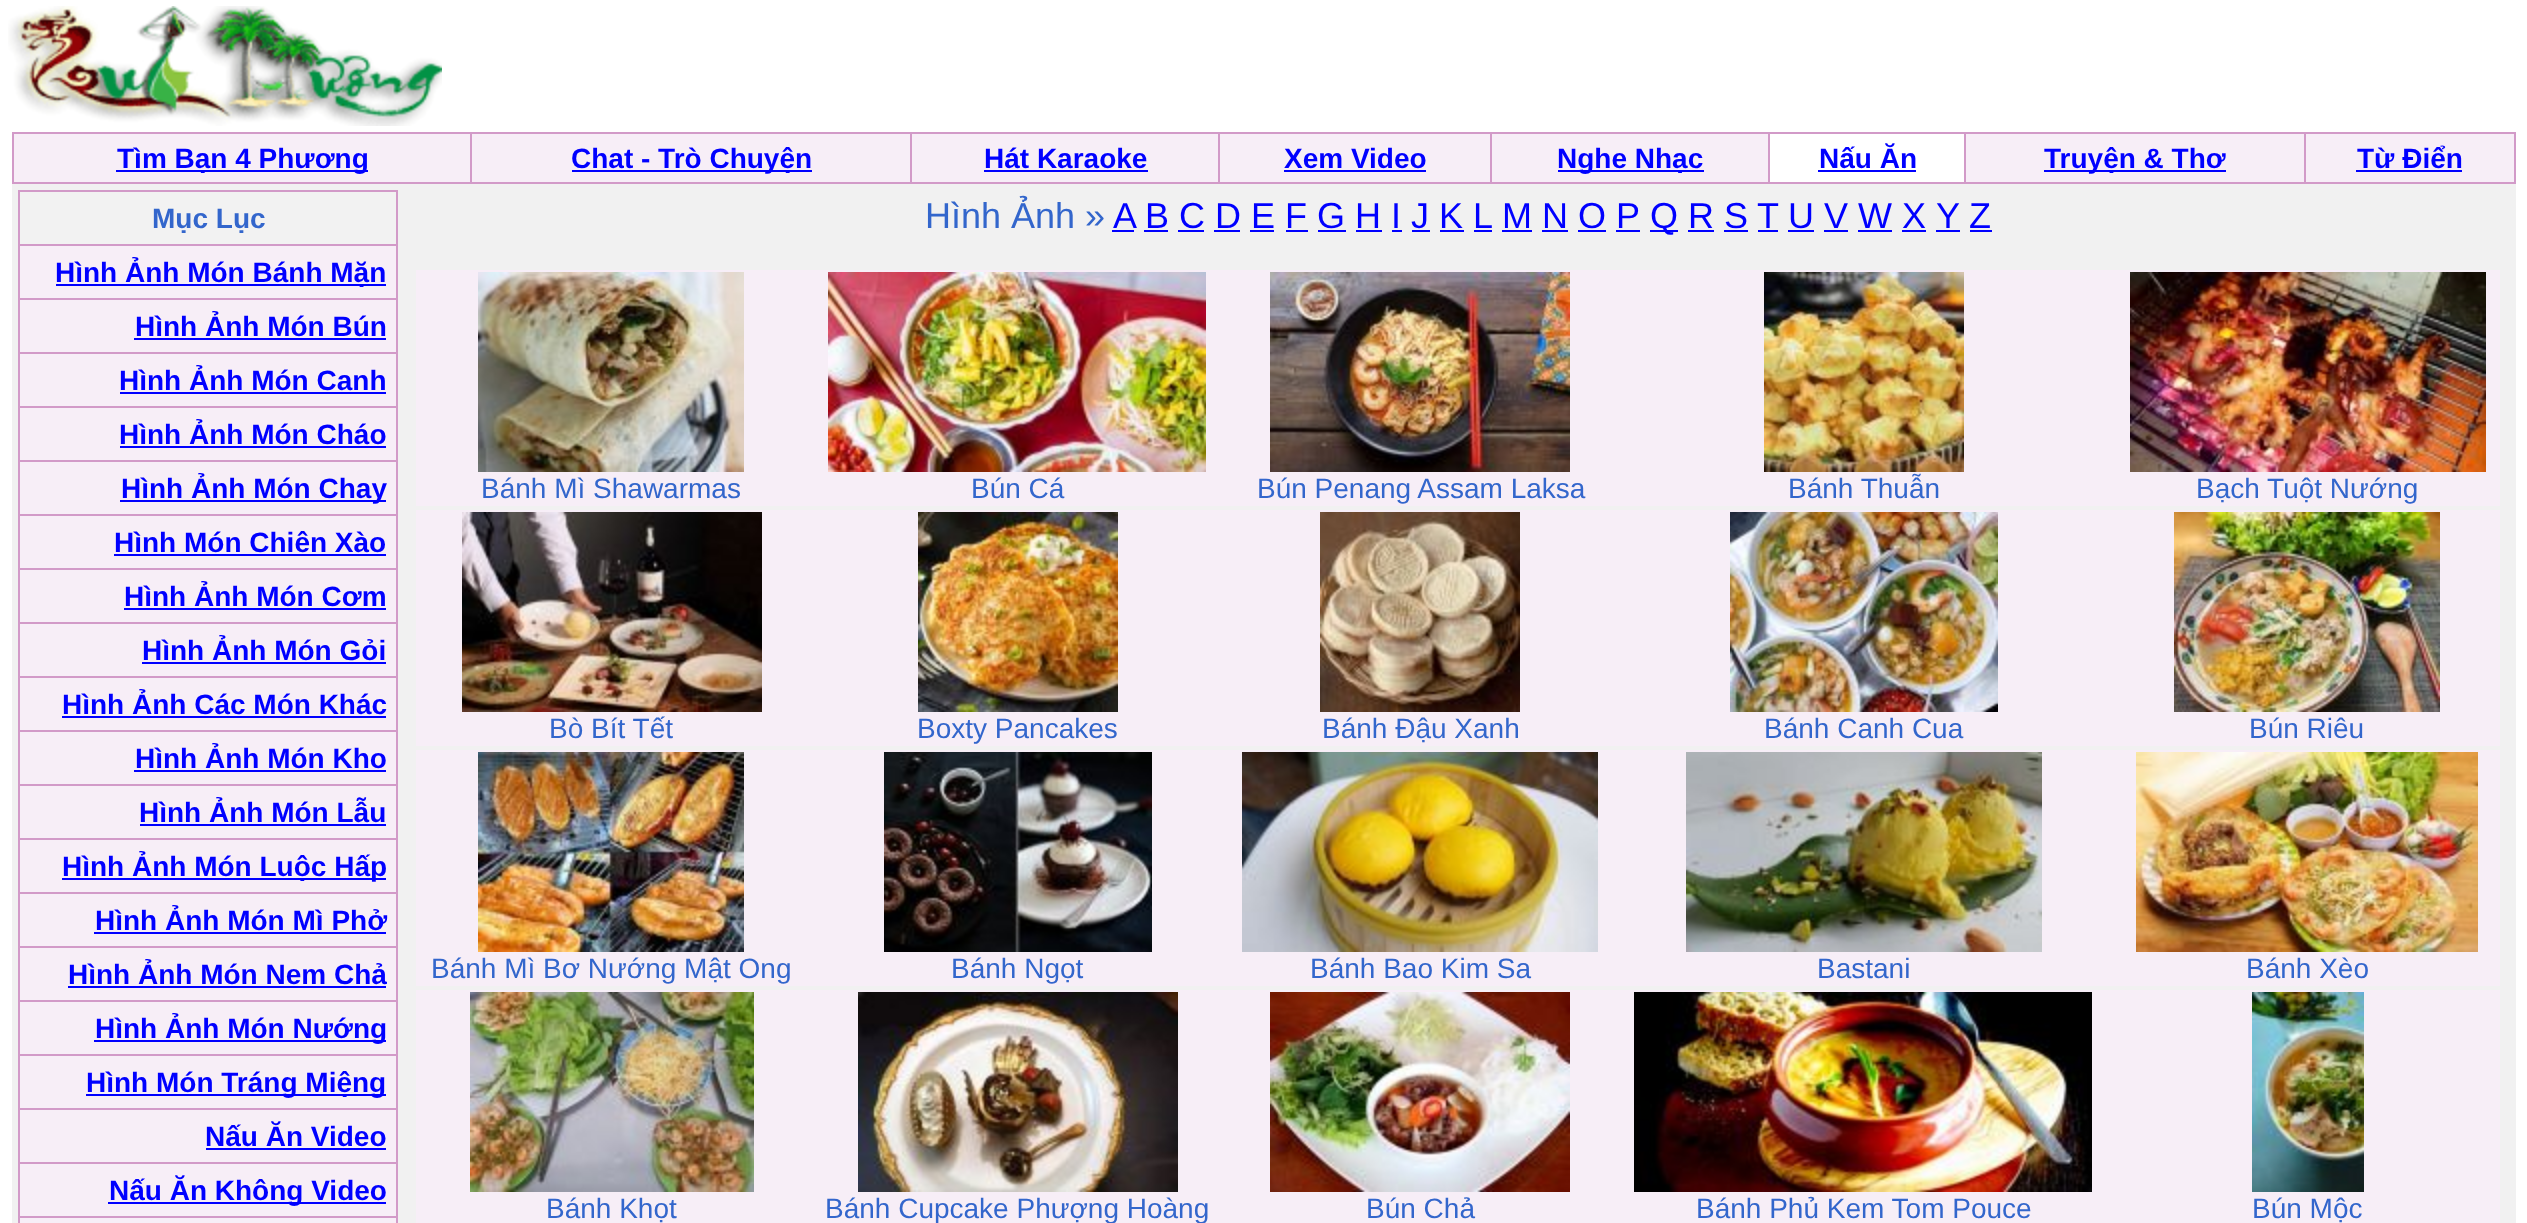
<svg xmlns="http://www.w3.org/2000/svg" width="2527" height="1223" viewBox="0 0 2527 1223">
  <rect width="100%" height="100%" fill="rgb(255,255,255)"/>
  <image x="8" y="6" width="434" height="120" href="pic1.png"/>
  <rect x="12" y="132" width="2504" height="52" fill="rgb(210,154,200)"/>
  <rect x="14" y="134" width="456" height="48" fill="rgb(247,238,247)"/>
  <rect x="116" y="170" width="252" height="2" fill="rgb(0,0,255)"/>
  <text x="117" y="168" font-family="Liberation Sans" font-size="28" font-weight="bold" fill="rgb(0,0,255)">Tìm Bạn 4 Phương</text>
  <rect x="472" y="134" width="438" height="48" fill="rgb(247,238,247)"/>
  <rect x="572" y="170" width="240" height="2" fill="rgb(0,0,255)"/>
  <text x="571" y="168" font-family="Liberation Sans" font-size="28" font-weight="bold" fill="rgb(0,0,255)">Chat - Trò Chuyện</text>
  <rect x="912" y="134" width="306" height="48" fill="rgb(247,238,247)"/>
  <text x="984" y="168" font-family="Liberation Sans" font-size="28" font-weight="bold" fill="rgb(0,0,255)">Hát Karaoke</text>
  <rect x="984" y="170" width="164" height="2" fill="rgb(0,0,255)"/>
  <rect x="1220" y="134" width="270" height="48" fill="rgb(247,238,247)"/>
  <text x="1284" y="168" font-family="Liberation Sans" font-size="28" font-weight="bold" fill="rgb(0,0,255)">Xem Video</text>
  <rect x="1284" y="170" width="142" height="2" fill="rgb(0,0,255)"/>
  <rect x="1492" y="134" width="276" height="48" fill="rgb(247,238,247)"/>
  <rect x="1558" y="170" width="146" height="2" fill="rgb(0,0,255)"/>
  <text x="1557" y="168" font-family="Liberation Sans" font-size="28" font-weight="bold" fill="rgb(0,0,255)">Nghe Nhạc</text>
  <rect x="1770" y="134" width="194" height="48" fill="rgb(255,255,255)"/>
  <text x="1819" y="168" font-family="Liberation Sans" font-size="28" font-weight="bold" fill="rgb(0,0,255)">Nấu Ăn</text>
  <rect x="1818" y="170" width="98" height="2" fill="rgb(0,0,255)"/>
  <rect x="1966" y="134" width="338" height="48" fill="rgb(247,238,247)"/>
  <rect x="2044" y="170" width="182" height="2" fill="rgb(0,0,255)"/>
  <text x="2044" y="168" font-family="Liberation Sans" font-size="28" font-weight="bold" fill="rgb(0,0,255)">Truyện &amp; Thơ</text>
  <rect x="2306" y="134" width="208" height="48" fill="rgb(247,238,247)"/>
  <text x="2357" y="168" font-family="Liberation Sans" font-size="28" font-weight="bold" fill="rgb(0,0,255)">Từ Điển</text>
  <rect x="2356" y="170" width="106" height="2" fill="rgb(0,0,255)"/>
  <rect x="12" y="184" width="2504" height="1039" fill="rgb(241,241,241)"/>
  <rect x="18" y="190" width="380" height="1033" fill="rgb(210,154,200)"/>
  <rect x="20" y="192" width="376" height="52" fill="rgb(242,242,242)"/>
  <text x="152" y="228" font-family="Liberation Sans" font-size="28" font-weight="bold" fill="rgb(51,102,204)">Mục Lục</text>
  <rect x="20" y="246" width="376" height="52" fill="rgb(247,238,247)"/>
  <rect x="56" y="284" width="330" height="2" fill="rgb(0,0,255)"/>
  <text x="55" y="282" font-family="Liberation Sans" font-size="28" font-weight="bold" fill="rgb(0,0,255)">Hình Ảnh Món Bánh Mặn</text>
  <rect x="20" y="300" width="376" height="52" fill="rgb(247,238,247)"/>
  <text x="135" y="336" font-family="Liberation Sans" font-size="28" font-weight="bold" fill="rgb(0,0,255)">Hình Ảnh Món Bún</text>
  <rect x="134" y="338" width="252" height="2" fill="rgb(0,0,255)"/>
  <rect x="20" y="354" width="376" height="52" fill="rgb(247,238,247)"/>
  <text x="119" y="390" font-family="Liberation Sans" font-size="28" font-weight="bold" fill="rgb(0,0,255)">Hình Ảnh Món Canh</text>
  <rect x="120" y="392" width="266" height="2" fill="rgb(0,0,255)"/>
  <rect x="20" y="408" width="376" height="52" fill="rgb(247,238,247)"/>
  <text x="119" y="444" font-family="Liberation Sans" font-size="28" font-weight="bold" fill="rgb(0,0,255)">Hình Ảnh Món Cháo</text>
  <rect x="120" y="446" width="266" height="2" fill="rgb(0,0,255)"/>
  <rect x="20" y="462" width="376" height="52" fill="rgb(247,238,247)"/>
  <rect x="120" y="500" width="266" height="2" fill="rgb(0,0,255)"/>
  <text x="121" y="498" font-family="Liberation Sans" font-size="28" font-weight="bold" fill="rgb(0,0,255)">Hình Ảnh Món Chay</text>
  <rect x="20" y="516" width="376" height="52" fill="rgb(247,238,247)"/>
  <text x="114" y="552" font-family="Liberation Sans" font-size="28" font-weight="bold" fill="rgb(0,0,255)">Hình Món Chiên Xào</text>
  <rect x="114" y="554" width="272" height="2" fill="rgb(0,0,255)"/>
  <rect x="20" y="570" width="376" height="52" fill="rgb(247,238,247)"/>
  <text x="124" y="606" font-family="Liberation Sans" font-size="28" font-weight="bold" fill="rgb(0,0,255)">Hình Ảnh Món Cơm</text>
  <rect x="124" y="608" width="262" height="2" fill="rgb(0,0,255)"/>
  <rect x="20" y="624" width="376" height="52" fill="rgb(247,238,247)"/>
  <text x="142" y="660" font-family="Liberation Sans" font-size="28" font-weight="bold" fill="rgb(0,0,255)">Hình Ảnh Món Gỏi</text>
  <rect x="142" y="662" width="244" height="2" fill="rgb(0,0,255)"/>
  <rect x="20" y="678" width="376" height="52" fill="rgb(247,238,247)"/>
  <text x="62" y="714" font-family="Liberation Sans" font-size="28" font-weight="bold" fill="rgb(0,0,255)">Hình Ảnh Các Món Khác</text>
  <rect x="62" y="716" width="324" height="2" fill="rgb(0,0,255)"/>
  <rect x="20" y="732" width="376" height="52" fill="rgb(247,238,247)"/>
  <text x="135" y="768" font-family="Liberation Sans" font-size="28" font-weight="bold" fill="rgb(0,0,255)">Hình Ảnh Món Kho</text>
  <rect x="134" y="770" width="252" height="2" fill="rgb(0,0,255)"/>
  <rect x="20" y="786" width="376" height="52" fill="rgb(247,238,247)"/>
  <text x="139" y="822" font-family="Liberation Sans" font-size="28" font-weight="bold" fill="rgb(0,0,255)">Hình Ảnh Món Lẫu</text>
  <rect x="140" y="824" width="246" height="2" fill="rgb(0,0,255)"/>
  <rect x="20" y="840" width="376" height="52" fill="rgb(247,238,247)"/>
  <rect x="62" y="878" width="324" height="2" fill="rgb(0,0,255)"/>
  <text x="62" y="876" font-family="Liberation Sans" font-size="28" font-weight="bold" fill="rgb(0,0,255)">Hình Ảnh Món Luộc Hấp</text>
  <rect x="20" y="894" width="376" height="52" fill="rgb(247,238,247)"/>
  <text x="95" y="930" font-family="Liberation Sans" font-size="28" font-weight="bold" fill="rgb(0,0,255)">Hình Ảnh Món Mì Phở</text>
  <rect x="94" y="932" width="292" height="2" fill="rgb(0,0,255)"/>
  <rect x="20" y="948" width="376" height="52" fill="rgb(247,238,247)"/>
  <text x="68" y="984" font-family="Liberation Sans" font-size="28" font-weight="bold" fill="rgb(0,0,255)">Hình Ảnh Món Nem Chả</text>
  <rect x="68" y="986" width="318" height="2" fill="rgb(0,0,255)"/>
  <rect x="20" y="1002" width="376" height="52" fill="rgb(247,238,247)"/>
  <rect x="94" y="1040" width="292" height="2" fill="rgb(0,0,255)"/>
  <text x="95" y="1038" font-family="Liberation Sans" font-size="28" font-weight="bold" fill="rgb(0,0,255)">Hình Ảnh Món Nướng</text>
  <rect x="20" y="1056" width="376" height="52" fill="rgb(247,238,247)"/>
  <rect x="86" y="1094" width="300" height="2" fill="rgb(0,0,255)"/>
  <text x="86" y="1092" font-family="Liberation Sans" font-size="28" font-weight="bold" fill="rgb(0,0,255)">Hình Món Tráng Miệng</text>
  <rect x="20" y="1110" width="376" height="52" fill="rgb(247,238,247)"/>
  <text x="205" y="1146" font-family="Liberation Sans" font-size="28" font-weight="bold" fill="rgb(0,0,255)">Nấu Ăn Video</text>
  <rect x="206" y="1148" width="180" height="2" fill="rgb(0,0,255)"/>
  <rect x="20" y="1164" width="376" height="52" fill="rgb(247,238,247)"/>
  <rect x="108" y="1202" width="278" height="2" fill="rgb(0,0,255)"/>
  <text x="109" y="1200" font-family="Liberation Sans" font-size="28" font-weight="bold" fill="rgb(0,0,255)">Nấu Ăn Không Video</text>
  <rect x="20" y="1218" width="376" height="5" fill="rgb(247,238,247)"/>
  <text x="925" y="228" font-family="Liberation Sans" font-size="36" fill="rgb(51,102,204)">Hình Ảnh »</text>
  <text x="1113" y="228" font-family="Liberation Sans" font-size="36" fill="rgb(0,0,255)">A</text>
  <rect x="1112" y="230" width="22" height="2" fill="rgb(0,0,255)"/>
  <text x="1145" y="228" font-family="Liberation Sans" font-size="36" fill="rgb(0,0,255)">B C D E F G H I J K L</text>
  <rect x="1144" y="230" width="24" height="2" fill="rgb(0,0,255)"/>
  <text x="1502" y="228" font-family="Liberation Sans" font-size="36" fill="rgb(0,0,255)">M N O P</text>
  <rect x="1502" y="230" width="30" height="2" fill="rgb(0,0,255)"/>
  <rect x="1650" y="230" width="28" height="2" fill="rgb(0,0,255)"/>
  <g font-family="Liberation Sans" font-size="36" fill="rgb(0,0,255)">
    <text x="1650" y="228">Q R S</text>
    <text x="1757" y="228">T</text>
  </g>
  <rect x="1758" y="230" width="20" height="2" fill="rgb(0,0,255)"/>
  <text x="1788" y="228" font-family="Liberation Sans" font-size="36" fill="rgb(0,0,255)">U V W X</text>
  <rect x="1788" y="230" width="26" height="2" fill="rgb(0,0,255)"/>
  <text x="1936" y="228" font-family="Liberation Sans" font-size="36" fill="rgb(0,0,255)">Y</text>
  <rect x="1936" y="230" width="24" height="2" fill="rgb(0,0,255)"/>
  <text x="1969" y="228" font-family="Liberation Sans" font-size="36" fill="rgb(0,0,255)">Z</text>
  <rect x="1970" y="230" width="22" height="2" fill="rgb(0,0,255)"/>
  <rect x="1178" y="230" width="26" height="2" fill="rgb(0,0,255)"/>
  <rect x="1214" y="230" width="26" height="2" fill="rgb(0,0,255)"/>
  <rect x="1250" y="230" width="24" height="2" fill="rgb(0,0,255)"/>
  <rect x="1286" y="230" width="22" height="2" fill="rgb(0,0,255)"/>
  <rect x="1318" y="230" width="28" height="2" fill="rgb(0,0,255)"/>
  <rect x="1356" y="230" width="26" height="2" fill="rgb(0,0,255)"/>
  <rect x="1392" y="230" width="10" height="2" fill="rgb(0,0,255)"/>
  <rect x="1412" y="230" width="18" height="2" fill="rgb(0,0,255)"/>
  <rect x="1440" y="230" width="24" height="2" fill="rgb(0,0,255)"/>
  <rect x="1474" y="230" width="18" height="2" fill="rgb(0,0,255)"/>
  <rect x="1542" y="230" width="26" height="2" fill="rgb(0,0,255)"/>
  <rect x="1578" y="230" width="28" height="2" fill="rgb(0,0,255)"/>
  <rect x="1616" y="230" width="24" height="2" fill="rgb(0,0,255)"/>
  <rect x="1688" y="230" width="26" height="2" fill="rgb(0,0,255)"/>
  <rect x="1724" y="230" width="24" height="2" fill="rgb(0,0,255)"/>
  <rect x="1824" y="230" width="24" height="2" fill="rgb(0,0,255)"/>
  <rect x="1858" y="230" width="34" height="2" fill="rgb(0,0,255)"/>
  <rect x="1902" y="230" width="24" height="2" fill="rgb(0,0,255)"/>
  <rect x="416" y="270" width="2084" height="236" fill="rgb(247,238,247)"/>
  <image x="478" y="272" width="266" height="200" href="pic2.png"/>
  <text x="481" y="498" font-family="Liberation Sans" font-size="28" fill="rgb(51,102,204)">Bánh Mì Shawarmas</text>
  <image x="828" y="272" width="378" height="200" href="pic3.png"/>
  <text x="971" y="498" font-family="Liberation Sans" font-size="28" fill="rgb(51,102,204)">Bún Cá</text>
  <image x="1270" y="272" width="300" height="200" href="pic4.png"/>
  <text x="1257" y="498" font-family="Liberation Sans" font-size="28" fill="rgb(51,102,204)">Bún Penang Assam Laksa</text>
  <image x="1764" y="272" width="200" height="200" href="pic5.png"/>
  <text x="1788" y="498" font-family="Liberation Sans" font-size="28" fill="rgb(51,102,204)">Bánh Thuẫn</text>
  <image x="2130" y="272" width="356" height="200" href="pic6.png"/>
  <text x="2196" y="498" font-family="Liberation Sans" font-size="28" fill="rgb(51,102,204)">Bạch Tuột Nướng</text>
  <rect x="416" y="510" width="2084" height="236" fill="rgb(247,238,247)"/>
  <image x="462" y="512" width="300" height="200" href="pic7.png"/>
  <text x="549" y="738" font-family="Liberation Sans" font-size="28" fill="rgb(51,102,204)">Bò Bít Tết</text>
  <image x="918" y="512" width="200" height="200" href="pic8.png"/>
  <text x="917" y="738" font-family="Liberation Sans" font-size="28" fill="rgb(51,102,204)">Boxty Pancakes</text>
  <image x="1320" y="512" width="200" height="200" href="pic9.png"/>
  <text x="1322" y="738" font-family="Liberation Sans" font-size="28" fill="rgb(51,102,204)">Bánh Đậu Xanh</text>
  <image x="1730" y="512" width="268" height="200" href="pic10.png"/>
  <text x="1764" y="738" font-family="Liberation Sans" font-size="28" fill="rgb(51,102,204)">Bánh Canh Cua</text>
  <image x="2174" y="512" width="266" height="200" href="pic11.png"/>
  <text x="2249" y="738" font-family="Liberation Sans" font-size="28" fill="rgb(51,102,204)">Bún Riêu</text>
  <rect x="416" y="750" width="2084" height="236" fill="rgb(247,238,247)"/>
  <image x="478" y="752" width="266" height="200" href="pic12.png"/>
  <text x="431" y="978" font-family="Liberation Sans" font-size="28" fill="rgb(51,102,204)">Bánh Mì Bơ Nướng Mật Ong</text>
  <image x="884" y="752" width="268" height="200" href="pic13.png"/>
  <text x="951" y="978" font-family="Liberation Sans" font-size="28" fill="rgb(51,102,204)">Bánh Ngọt</text>
  <image x="1242" y="752" width="356" height="200" href="pic14.png"/>
  <text x="1310" y="978" font-family="Liberation Sans" font-size="28" fill="rgb(51,102,204)">Bánh Bao Kim Sa</text>
  <image x="1686" y="752" width="356" height="200" href="pic15.png"/>
  <text x="1817" y="978" font-family="Liberation Sans" font-size="28" fill="rgb(51,102,204)">Bastani</text>
  <image x="2136" y="752" width="342" height="200" href="pic16.png"/>
  <text x="2246" y="978" font-family="Liberation Sans" font-size="28" fill="rgb(51,102,204)">Bánh Xèo</text>
  <rect x="416" y="990" width="2084" height="233" fill="rgb(247,238,247)"/>
  <image x="470" y="992" width="284" height="200" href="pic17.png"/>
  <text x="546" y="1218" font-family="Liberation Sans" font-size="28" fill="rgb(51,102,204)">Bánh Khọt</text>
  <image x="858" y="992" width="320" height="200" href="pic18.png"/>
  <text x="825" y="1218" font-family="Liberation Sans" font-size="28" fill="rgb(51,102,204)">Bánh Cupcake Phượng Hoàng</text>
  <image x="1270" y="992" width="300" height="200" href="pic19.png"/>
  <text x="1366" y="1218" font-family="Liberation Sans" font-size="28" fill="rgb(51,102,204)">Bún Chả</text>
  <image x="1634" y="992" width="458" height="200" href="pic20.png"/>
  <text x="1696" y="1218" font-family="Liberation Sans" font-size="28" fill="rgb(51,102,204)">Bánh Phủ Kem Tom Pouce</text>
  <image x="2252" y="992" width="112" height="200" href="pic21.png"/>
  <text x="2252" y="1218" font-family="Liberation Sans" font-size="28" fill="rgb(51,102,204)">Bún Mộc</text>
</svg>
